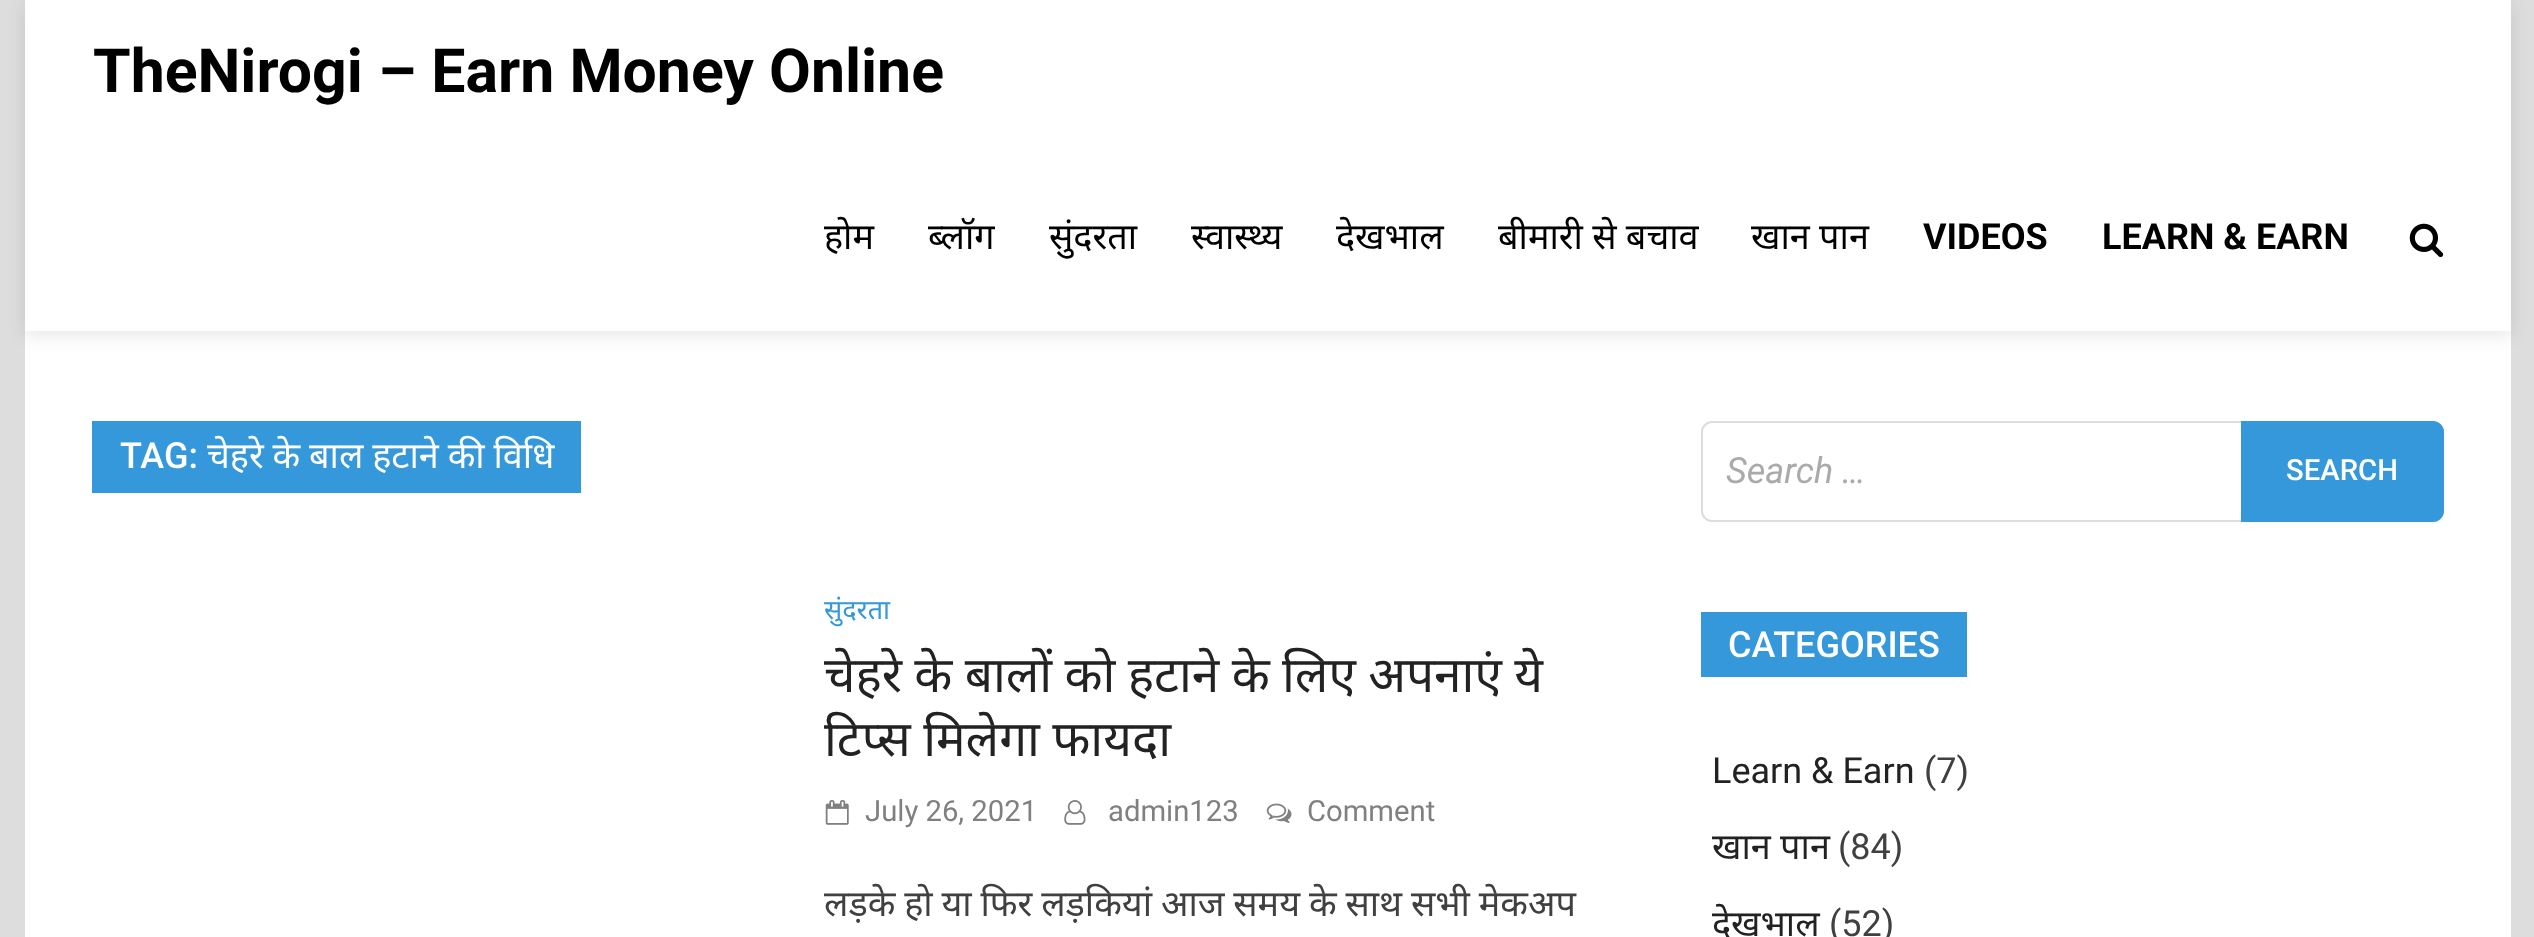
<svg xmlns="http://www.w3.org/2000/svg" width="2534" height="937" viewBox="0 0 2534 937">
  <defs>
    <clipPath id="clip1"><path d="M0 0H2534V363H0ZM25 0H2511V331H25Z" clip-rule="evenodd"/></clipPath>
    <clipPath id="clip2"><rect x="824" y="594" width="814" height="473"/></clipPath>
    <clipPath id="clip3"><rect x="1701" y="612" width="743" height="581"/></clipPath>
  </defs>
  <rect width="100%" height="100%" fill="rgb(221,221,221)"/>
  <rect x="25" y="0" width="2486" height="937" fill="rgb(255,255,255)"/>
  <g clip-path="url(#clip1)">
    <rect x="25" y="5" width="2486" height="330" fill="rgba(0,0,0,0.1)" filter="blur(9px)"/>
  </g>
  <text x="93" y="92" font-family="Roboto" font-size="60.75" font-weight="bold" fill="rgb(0,0,0)">TheNirogi – Earn Money Online</text>
  <g font-family="Noto Sans" font-size="36" fill="rgb(0,0,0)">
    <text x="824" y="249">होम</text>
    <text x="928" y="249">ब्लॉग</text>
    <text x="1049" y="249">सुंदरता</text>
    <text x="1191" y="249">स्वास्थ्य</text>
    <text x="1336" y="249">देखभाल</text>
    <text x="1498" y="249">बीमारी से बचाव</text>
    <text x="1751" y="249">खान पान</text>
  </g>
  <g font-family="Roboto" font-size="36" font-weight="bold" fill="rgb(0,0,0)">
    <text x="1923" y="249">VIDEOS</text>
    <text x="2102" y="249">LEARN &amp; EARN</text>
  </g>
  <image x="2409" y="223" width="35" height="35" href="pic1.png"/>
  <rect x="92" y="421" width="489" height="72" fill="rgb(52,152,219)"/>
  <text x="120" y="468" font-family="Roboto" font-size="36" font-weight="500" fill="rgb(255,255,255)">TAG:</text>
  <text x="207" y="468" word-spacing="-0.5" font-family="Noto Sans" font-size="36" fill="rgb(255,255,255)">चेहरे के बाल हटाने की विधि</text>
  <g clip-path="url(#clip2)">
    <text x="824" y="619" font-family="Noto Sans" font-size="27" fill="rgb(52,152,219)">सुंदरता</text>
    <text x="824" y="692" word-spacing="-0.5" font-family="Noto Sans" font-size="49.5" fill="rgb(34,34,34)">चेहरे के बालों को हटाने के लिए अपनाएं ये</text>
  </g>
  <text x="824" y="756" word-spacing="-0.5" font-family="Noto Sans" font-size="49.5" fill="rgb(34,34,34)">टिप्स मिलेगा फायदा</text>
  <image x="825" y="800" width="24" height="25" href="pic2.png"/>
  <text x="865" y="821" font-family="Roboto" font-size="29.25" fill="rgb(128,128,128)">July 26, 2021</text>
  <image x="1064" y="800" width="22" height="25" href="pic3.png"/>
  <text x="1108" y="821" font-family="Roboto" font-size="29.25" fill="rgb(128,128,128)">admin123</text>
  <image x="1266" y="803" width="26" height="20" href="pic4.png"/>
  <text x="1307" y="821" font-family="Roboto" font-size="29.25" fill="rgb(128,128,128)">Comment</text>
  <text x="824" y="916" word-spacing="-0.5" font-family="Noto Sans" font-size="36" fill="rgb(64,64,64)">लड़के हो या फिर लड़कियां आज समय के साथ सभी मेकअप</text>
  <rect x="1702" y="422" width="741" height="99" rx="10" fill="none" stroke="rgb(221,221,221)" stroke-width="2"/>
  <text x="1726" y="483" font-family="Roboto" font-size="36" font-style="italic" fill="rgb(170,170,170)">Search …</text>
  <path d="M2241 421H2433C2439 421 2444 426 2444 432V511C2444 517 2439 522 2433 522H2241Z" fill="rgb(52,152,219)"/>
  <text x="2286" y="480" font-family="Roboto" font-size="29.25" font-weight="500" fill="rgb(255,255,255)">SEARCH</text>
  <rect x="1701" y="612" width="266" height="65" fill="rgb(52,152,219)"/>
  <text x="1728" y="657" font-family="Roboto" font-size="36" font-weight="500" fill="rgb(255,255,255)">CATEGORIES</text>
  <text x="1712" y="783" font-family="Roboto" font-size="36" fill="rgb(34,34,34)">Learn &amp; Earn</text>
  <text x="1924" y="783" font-family="Roboto" font-size="36" fill="rgb(64,64,64)">(7)</text>
  <text x="1712" y="859" font-family="Noto Sans" font-size="36" fill="rgb(34,34,34)">खान पान</text>
  <text x="1838" y="859" font-family="Roboto" font-size="36" fill="rgb(64,64,64)">(84)</text>
  <g clip-path="url(#clip3)">
    <text x="1712" y="936" font-family="Noto Sans" font-size="36" fill="rgb(34,34,34)">देखभाल</text>
  </g>
  <text x="1829" y="936" font-family="Roboto" font-size="36" fill="rgb(64,64,64)">(52)</text>
</svg>
